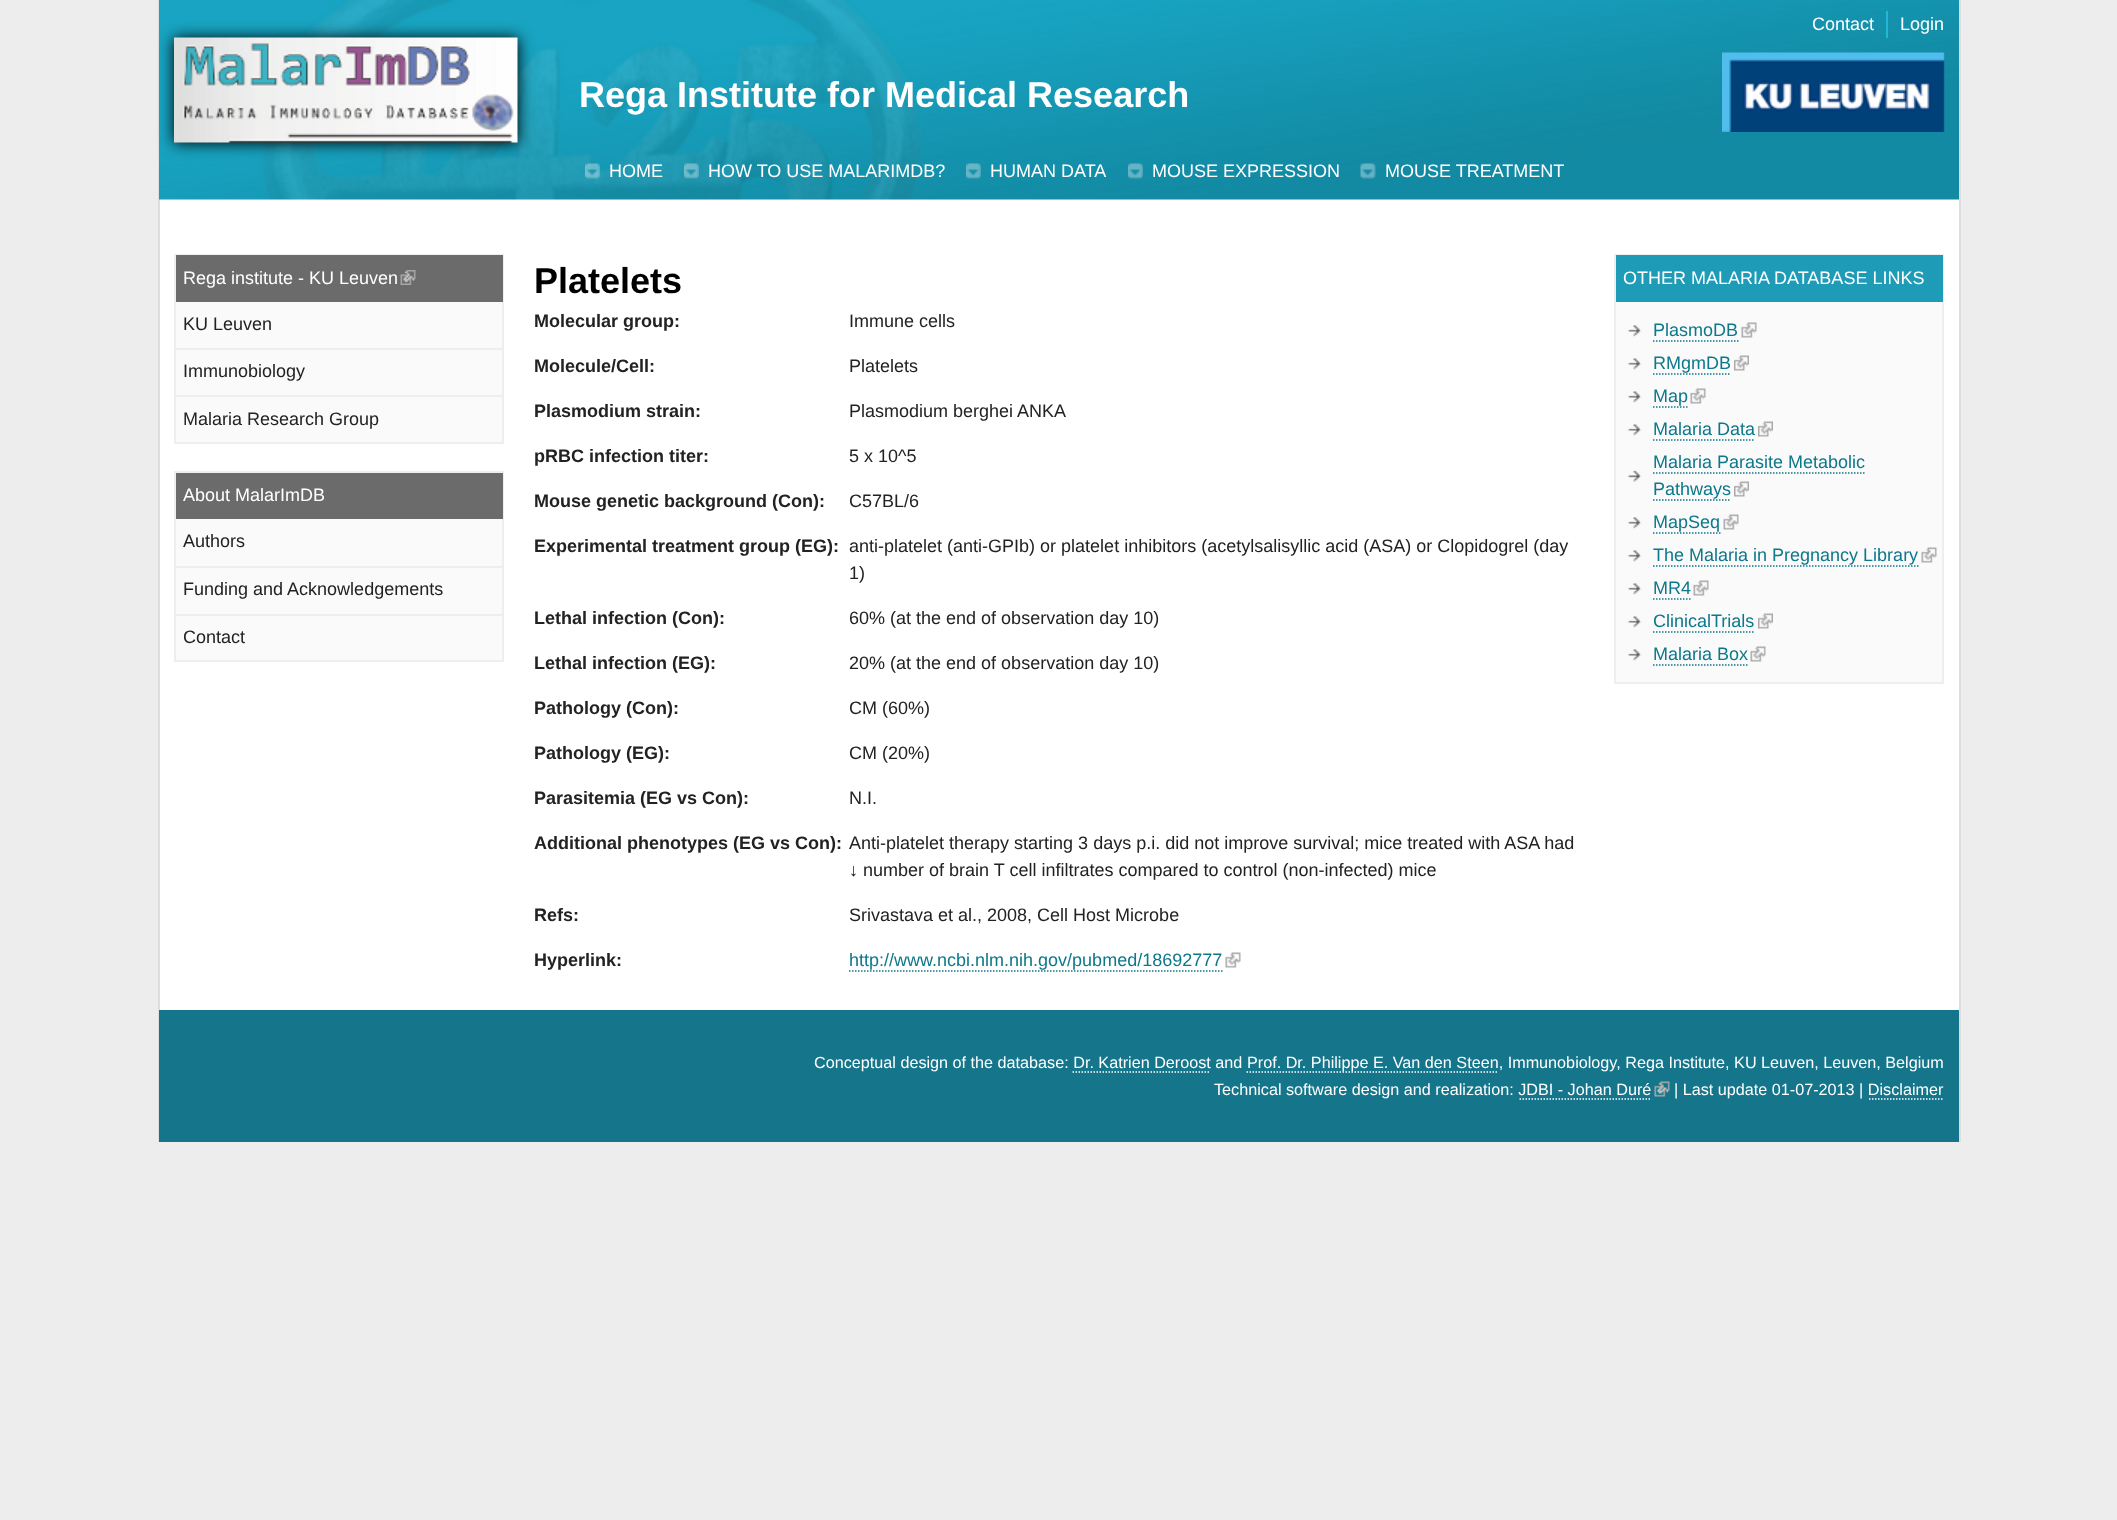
<svg xmlns="http://www.w3.org/2000/svg" width="2117" height="1520" viewBox="0 0 2117 1520">
  <rect width="100%" height="100%" fill="rgb(237,237,237)"/>
  <rect x="160" y="199" width="1799" height="811" fill="rgb(255,255,255)"/>
  <rect x="1959" y="0" width="2" height="1142" fill="rgb(221,221,221)"/>
  <rect x="158" y="0" width="2" height="1142" fill="rgb(221,221,221)"/>
  <image x="159" y="0" width="1800" height="200" href="pic1.png"/>
  <rect x="174" y="38" width="344" height="105" fill="rgb(0,0,0)" filter="blur(7.5px)"/>
  <image x="174" y="37" width="344" height="106" href="pic2.png"/>
  <text x="1812" y="30" font-family="Liberation Sans" font-size="18" fill="rgb(255,255,255)">Contact</text>
  <rect x="1886" y="11" width="2" height="27" fill="rgb(35,183,214)"/>
  <text x="1900" y="30" font-family="Liberation Sans" font-size="18" fill="rgb(255,255,255)">Login</text>
  <image x="585" y="163" width="15" height="16" href="pic3.png"/>
  <text x="609" y="177" font-family="Liberation Sans" font-size="18" fill="rgb(255,255,255)">HOME</text>
  <image x="684" y="163" width="15" height="16" href="pic4.png"/>
  <text x="708" y="177" font-family="Liberation Sans" font-size="18" fill="rgb(255,255,255)">HOW TO USE MALARIMDB?</text>
  <image x="966" y="163" width="15" height="16" href="pic5.png"/>
  <text x="990" y="177" font-family="Liberation Sans" font-size="18" fill="rgb(255,255,255)">HUMAN DATA</text>
  <image x="1128" y="163" width="15" height="16" href="pic6.png"/>
  <text x="1152" y="177" font-family="Liberation Sans" font-size="18" fill="rgb(255,255,255)">MOUSE EXPRESSION</text>
  <image x="1360" y="163" width="16" height="16" href="pic7.png"/>
  <text x="1385" y="177" font-family="Liberation Sans" font-size="18" fill="rgb(255,255,255)">MOUSE TREATMENT</text>
  <text x="579" y="107" font-family="Liberation Sans" font-size="36" font-weight="bold" fill="rgb(255,255,255)">Rega Institute for Medical Research</text>
  <image x="1722" y="52" width="223" height="80" href="pic8.png"/>
  <text x="534" y="293" font-family="Liberation Sans" font-size="36" font-weight="bold" fill="rgb(0,0,0)">Platelets</text>
  <text x="534" y="327" font-family="Liberation Sans" font-size="18" font-weight="bold" fill="rgb(34,34,34)">Molecular group:</text>
  <text x="849" y="327" font-family="Liberation Sans" font-size="18" fill="rgb(34,34,34)">Immune cells</text>
  <text x="534" y="372" font-family="Liberation Sans" font-size="18" font-weight="bold" fill="rgb(34,34,34)">Molecule/Cell:</text>
  <text x="849" y="372" font-family="Liberation Sans" font-size="18" fill="rgb(34,34,34)">Platelets</text>
  <text x="534" y="417" font-family="Liberation Sans" font-size="18" font-weight="bold" fill="rgb(34,34,34)">Plasmodium strain:</text>
  <text x="849" y="417" font-family="Liberation Sans" font-size="18" fill="rgb(34,34,34)">Plasmodium berghei ANKA</text>
  <text x="534" y="462" font-family="Liberation Sans" font-size="18" font-weight="bold" fill="rgb(34,34,34)">pRBC infection titer:</text>
  <text x="849" y="462" font-family="Liberation Sans" font-size="18" fill="rgb(34,34,34)">5 x 10^5</text>
  <text x="534" y="507" font-family="Liberation Sans" font-size="18" font-weight="bold" fill="rgb(34,34,34)">Mouse genetic background (Con):</text>
  <text x="849" y="507" font-family="Liberation Sans" font-size="18" fill="rgb(34,34,34)">C57BL/6</text>
  <text x="534" y="552" font-family="Liberation Sans" font-size="18" font-weight="bold" fill="rgb(34,34,34)">Experimental treatment group (EG):</text>
  <g font-family="Liberation Sans" font-size="18" fill="rgb(34,34,34)">
    <text>
      <tspan x="849" y="552">anti-platelet (anti-GPIb) or platelet inhibitors (acetylsalisyllic acid (ASA) or Clopidogrel (day</tspan>
      <tspan x="849" y="579">1)</tspan>
    </text>
  </g>
  <text x="534" y="624" font-family="Liberation Sans" font-size="18" font-weight="bold" fill="rgb(34,34,34)">Lethal infection (Con):</text>
  <text x="849" y="624" font-family="Liberation Sans" font-size="18" fill="rgb(34,34,34)">60% (at the end of observation day 10)</text>
  <text x="534" y="669" font-family="Liberation Sans" font-size="18" font-weight="bold" fill="rgb(34,34,34)">Lethal infection (EG):</text>
  <text x="849" y="669" font-family="Liberation Sans" font-size="18" fill="rgb(34,34,34)">20% (at the end of observation day 10)</text>
  <text x="534" y="714" font-family="Liberation Sans" font-size="18" font-weight="bold" fill="rgb(34,34,34)">Pathology (Con):</text>
  <text x="849" y="714" font-family="Liberation Sans" font-size="18" fill="rgb(34,34,34)">CM (60%)</text>
  <text x="534" y="759" font-family="Liberation Sans" font-size="18" font-weight="bold" fill="rgb(34,34,34)">Pathology (EG):</text>
  <text x="849" y="759" font-family="Liberation Sans" font-size="18" fill="rgb(34,34,34)">CM (20%)</text>
  <text x="534" y="804" font-family="Liberation Sans" font-size="18" font-weight="bold" fill="rgb(34,34,34)">Parasitemia (EG vs Con):</text>
  <text x="849" y="804" font-family="Liberation Sans" font-size="18" fill="rgb(34,34,34)">N.I.</text>
  <text x="534" y="849" font-family="Liberation Sans" font-size="18" font-weight="bold" fill="rgb(34,34,34)">Additional phenotypes (EG vs Con):</text>
  <g font-family="Liberation Sans" font-size="18" fill="rgb(34,34,34)">
    <text>
      <tspan x="849" y="849">Anti-platelet therapy starting 3 days p.i. did not improve survival; mice treated with ASA had</tspan>
      <tspan x="849" y="876">↓ number of brain T cell infiltrates compared to control (non-infected) mice</tspan>
    </text>
  </g>
  <text x="534" y="921" font-family="Liberation Sans" font-size="18" font-weight="bold" fill="rgb(34,34,34)">Refs:</text>
  <text x="849" y="921" font-family="Liberation Sans" font-size="18" fill="rgb(34,34,34)">Srivastava et al., 2008, Cell Host Microbe</text>
  <text x="534" y="966" font-family="Liberation Sans" font-size="18" font-weight="bold" fill="rgb(34,34,34)">Hyperlink:</text>
  <text x="849" y="966" font-family="Liberation Sans" font-size="18" fill="rgb(12,120,139)">http://www.ncbi.nlm.nih.gov/pubmed/18692777</text>
  <path d="M849 971H1222.5" fill="none" stroke="rgb(12,120,139)" stroke-width="1.5" stroke-dasharray="1.5 1.5"/>
  <image x="1225" y="952" width="16" height="16" href="pic9.png"/>
  <rect x="176" y="302" width="326" height="140" fill="rgb(250,250,250)"/>
  <rect x="175" y="255" width="328" height="188" fill="none" stroke="rgb(238,238,238)" stroke-width="2"/>
  <rect x="176" y="255" width="327" height="47" fill="rgb(107,107,107)"/>
  <text x="183" y="284" font-family="Liberation Sans" font-size="18" fill="rgb(255,255,255)">Rega institute - KU Leuven</text>
  <image x="400" y="270" width="16" height="15" href="pic10.png"/>
  <rect x="176" y="348" width="327" height="2" fill="rgb(238,238,238)"/>
  <text x="183" y="330" font-family="Liberation Sans" font-size="18" fill="rgb(34,34,34)">KU Leuven</text>
  <rect x="176" y="395" width="327" height="2" fill="rgb(238,238,238)"/>
  <g font-family="Liberation Sans" font-size="18" fill="rgb(34,34,34)">
    <text x="183" y="377">Immunobiology</text>
    <text x="183" y="425">Malaria Research Group</text>
  </g>
  <rect x="176" y="519" width="326" height="141" fill="rgb(250,250,250)"/>
  <rect x="175" y="472" width="328" height="189" fill="none" stroke="rgb(238,238,238)" stroke-width="2"/>
  <rect x="176" y="473" width="327" height="46" fill="rgb(107,107,107)"/>
  <text x="183" y="501" font-family="Liberation Sans" font-size="18" fill="rgb(255,255,255)">About MalarImDB</text>
  <rect x="176" y="566" width="327" height="2" fill="rgb(238,238,238)"/>
  <text x="183" y="547" font-family="Liberation Sans" font-size="18" fill="rgb(34,34,34)">Authors</text>
  <rect x="176" y="614" width="327" height="2" fill="rgb(238,238,238)"/>
  <g font-family="Liberation Sans" font-size="18" fill="rgb(34,34,34)">
    <text x="183" y="595">Funding and Acknowledgements</text>
    <text x="183" y="643">Contact</text>
  </g>
  <rect x="1616" y="302" width="326" height="380" fill="rgb(250,250,250)"/>
  <rect x="1615" y="255" width="328" height="428" fill="none" stroke="rgb(238,238,238)" stroke-width="2"/>
  <rect x="1616" y="255" width="327" height="47" fill="rgb(30,155,183)"/>
  <text x="1623" y="284" font-family="Liberation Sans" font-size="18" fill="rgb(255,255,255)">OTHER MALARIA DATABASE LINKS</text>
  <image x="1627" y="325" width="15" height="12" href="pic11.png"/>
  <text x="1653" y="336" font-family="Liberation Sans" font-size="18" fill="rgb(12,120,139)">PlasmoDB</text>
  <path d="M1653 341H1738.5" fill="none" stroke="rgb(12,120,139)" stroke-width="1.5" stroke-dasharray="1.5 1.5"/>
  <image x="1741" y="322" width="16" height="16" href="pic12.png"/>
  <image x="1627" y="358" width="15" height="12" href="pic11.png"/>
  <text x="1653" y="369" font-family="Liberation Sans" font-size="18" fill="rgb(12,120,139)">RMgmDB</text>
  <path d="M1653 374H1731" fill="none" stroke="rgb(12,120,139)" stroke-width="1.5" stroke-dasharray="1.5 1.5"/>
  <image x="1734" y="355" width="15" height="16" href="pic13.png"/>
  <image x="1627" y="391" width="15" height="12" href="pic11.png"/>
  <text x="1653" y="402" font-family="Liberation Sans" font-size="18" fill="rgb(12,120,139)">Map</text>
  <path d="M1653 407H1687.5" fill="none" stroke="rgb(12,120,139)" stroke-width="1.5" stroke-dasharray="1.5 1.5"/>
  <image x="1690" y="388" width="16" height="16" href="pic12.png"/>
  <image x="1627" y="424" width="15" height="12" href="pic11.png"/>
  <text x="1653" y="435" font-family="Liberation Sans" font-size="18" fill="rgb(12,120,139)">Malaria Data</text>
  <path d="M1653 440H1755" fill="none" stroke="rgb(12,120,139)" stroke-width="1.5" stroke-dasharray="1.5 1.5"/>
  <image x="1758" y="421" width="15" height="16" href="pic13.png"/>
  <image x="1627" y="470" width="15" height="12" href="pic14.png"/>
  <text x="1653" y="468" font-family="Liberation Sans" font-size="18" fill="rgb(12,120,139)">Malaria Parasite Metabolic</text>
  <path d="M1653 473H1864.5" fill="none" stroke="rgb(12,120,139)" stroke-width="1.5" stroke-dasharray="1.5 1.5"/>
  <text x="1653" y="495" font-family="Liberation Sans" font-size="18" fill="rgb(12,120,139)">Pathways</text>
  <path d="M1653 500H1731" fill="none" stroke="rgb(12,120,139)" stroke-width="1.5" stroke-dasharray="1.5 1.5"/>
  <image x="1734" y="481" width="15" height="16" href="pic13.png"/>
  <image x="1627" y="517" width="15" height="12" href="pic11.png"/>
  <text x="1653" y="528" font-family="Liberation Sans" font-size="18" fill="rgb(12,120,139)">MapSeq</text>
  <path d="M1653 533H1720.5" fill="none" stroke="rgb(12,120,139)" stroke-width="1.5" stroke-dasharray="1.5 1.5"/>
  <image x="1723" y="514" width="16" height="16" href="pic12.png"/>
  <image x="1627" y="550" width="15" height="12" href="pic11.png"/>
  <text x="1653" y="561" font-family="Liberation Sans" font-size="18" fill="rgb(12,120,139)">The Malaria in Pregnancy Library</text>
  <path d="M1653 566H1918.5" fill="none" stroke="rgb(12,120,139)" stroke-width="1.5" stroke-dasharray="1.5 1.5"/>
  <image x="1921" y="547" width="16" height="16" href="pic15.png"/>
  <image x="1627" y="583" width="15" height="12" href="pic11.png"/>
  <text x="1653" y="594" font-family="Liberation Sans" font-size="18" fill="rgb(12,120,139)">MR4</text>
  <path d="M1653 599H1690.5" fill="none" stroke="rgb(12,120,139)" stroke-width="1.5" stroke-dasharray="1.5 1.5"/>
  <image x="1693" y="580" width="16" height="16" href="pic12.png"/>
  <image x="1627" y="616" width="15" height="12" href="pic11.png"/>
  <text x="1653" y="627" font-family="Liberation Sans" font-size="18" fill="rgb(12,120,139)">ClinicalTrials</text>
  <path d="M1653 632H1755" fill="none" stroke="rgb(12,120,139)" stroke-width="1.5" stroke-dasharray="1.5 1.5"/>
  <image x="1758" y="613" width="15" height="16" href="pic13.png"/>
  <image x="1627" y="649" width="15" height="12" href="pic11.png"/>
  <text x="1653" y="660" font-family="Liberation Sans" font-size="18" fill="rgb(12,120,139)">Malaria Box</text>
  <path d="M1653 665H1747.5" fill="none" stroke="rgb(12,120,139)" stroke-width="1.5" stroke-dasharray="1.5 1.5"/>
  <image x="1750" y="646" width="16" height="16" href="pic12.png"/>
  <rect x="159" y="1010" width="1800" height="132" fill="rgb(20,117,139)"/>
  <text x="814" y="1068" font-family="Liberation Sans" font-size="16.2" fill="rgb(255,255,255)">Conceptual design of the database: Dr. Katrien Deroost and</text>
  <path d="M1246.5 1072H1498.5" fill="none" stroke="rgb(255,255,255)" stroke-width="1.5" stroke-dasharray="1.5 1.5"/>
  <text x="1247" y="1068" font-family="Liberation Sans" font-size="16.2" fill="rgb(255,255,255)">Prof. Dr. Philippe E. Van den Steen, Immunobiology, Rega Institute, KU Leuven, Leuven, Belgium</text>
  <path d="M1072.5 1072H1210.5" fill="none" stroke="rgb(255,255,255)" stroke-width="1.5" stroke-dasharray="1.5 1.5"/>
  <text x="1214" y="1095" font-family="Liberation Sans" font-size="16.2" fill="rgb(255,255,255)">Technical software design and realization: JDBI - Johan Duré</text>
  <image x="1654" y="1081" width="16" height="16" href="pic16.png"/>
  <text x="1674" y="1095" font-family="Liberation Sans" font-size="16.2" fill="rgb(255,255,255)">| Last update 01-07-2013 | Disclaimer</text>
  <path d="M1519.5 1099H1651.5" fill="none" stroke="rgb(255,255,255)" stroke-width="1.5" stroke-dasharray="1.5 1.5"/>
  <path d="M1869 1099H1944" fill="none" stroke="rgb(255,255,255)" stroke-width="1.5" stroke-dasharray="1.5 1.5"/>
</svg>
